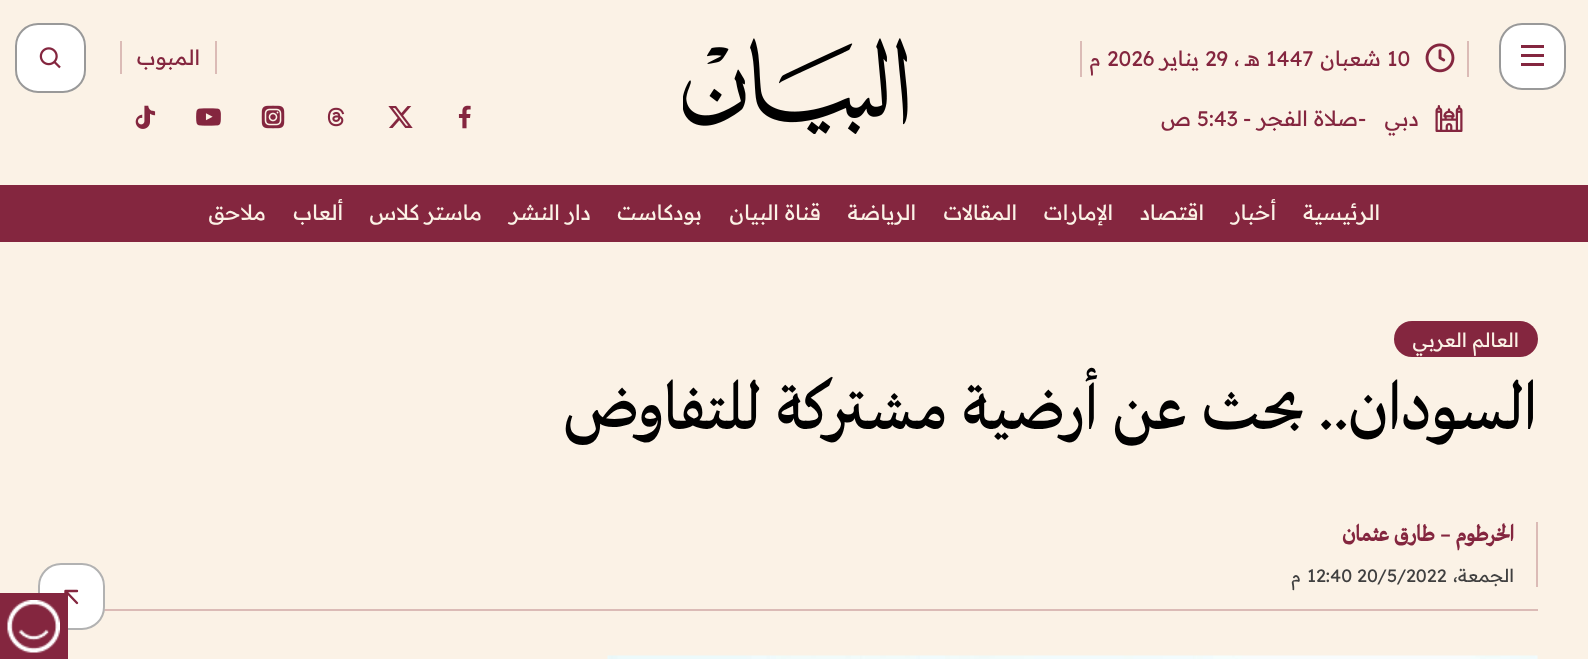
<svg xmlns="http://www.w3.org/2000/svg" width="1588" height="659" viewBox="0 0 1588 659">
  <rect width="100%" height="100%" fill="rgb(251,242,230)"/>
  <rect x="1499" y="23" width="67" height="67" rx="23" fill="rgb(255,255,255)"/>
  <rect x="1500" y="24" width="65" height="65" rx="22" fill="none" stroke="rgba(0,0,0,0.4)" stroke-width="2"/>
  <rect x="1521" y="45" width="23" height="3" fill="rgb(132,38,63)"/>
  <rect x="1521" y="54" width="23" height="3" fill="rgb(132,38,63)"/>
  <rect x="1521" y="63" width="23" height="3" fill="rgb(132,38,63)"/>
  <rect x="1467" y="41" width="2" height="36" fill="rgb(219,187,182)"/>
  <rect x="1080" y="41" width="2" height="36" fill="rgb(219,187,182)"/>
  <image x="1425" y="43" width="30" height="30" href="pic1.png"/>
  <text x="1387" y="66" font-family="Readex Pro" font-size="21" fill="rgb(132,38,63)">10</text>
  <text x="1381" y="66" font-family="Readex Pro" font-size="21" direction="rtl" fill="rgb(132,38,63)">شعبان</text>
  <text x="1266" y="66" font-family="Readex Pro" font-size="21" fill="rgb(132,38,63)">1447</text>
  <text x="1260" y="66" font-family="Readex Pro" font-size="21" direction="rtl" fill="rgb(132,38,63)">هـ ،</text>
  <text x="1205" y="66" font-family="Readex Pro" font-size="21" fill="rgb(132,38,63)">29</text>
  <text x="1199" y="66" font-family="Readex Pro" font-size="21" direction="rtl" fill="rgb(132,38,63)">يناير</text>
  <text x="1107" y="66" font-family="Readex Pro" font-size="21" fill="rgb(132,38,63)">2026</text>
  <text x="1101" y="66" font-family="Readex Pro" font-size="21" direction="rtl" fill="rgb(132,38,63)">م</text>
  <image x="1435" y="105" width="28" height="27" href="pic2.png"/>
  <text x="1419" y="126" font-family="Readex Pro" font-size="21" direction="rtl" fill="rgb(132,38,63)">دبي</text>
  <text x="1358" y="126" font-family="Readex Pro" font-size="21" fill="rgb(132,38,63)">-</text>
  <text x="1358" y="126" font-family="Readex Pro" font-size="21" direction="rtl" fill="rgb(132,38,63)">صلاة الفجر</text>
  <g font-family="Readex Pro" font-size="21" fill="rgb(132,38,63)">
    <text x="1243" y="126">-</text>
    <text x="1197" y="126">5:43</text>
  </g>
  <text x="1191" y="126" font-family="Readex Pro" font-size="21" direction="rtl" fill="rgb(132,38,63)">ص</text>
  <image x="683" y="38" width="225" height="96" href="pic3.png"/>
  <rect x="215" y="41" width="2" height="33" fill="rgb(219,187,182)"/>
  <rect x="120" y="41" width="2" height="33" fill="rgb(219,187,182)"/>
  <text x="200" y="65" font-family="Readex Pro" font-size="21" direction="rtl" fill="rgb(132,38,63)">المبوب</text>
  <image x="458" y="105" width="13" height="24" href="pic4.png"/>
  <image x="388" y="106" width="25" height="22" href="pic5.png"/>
  <image x="327" y="107" width="18" height="20" href="pic6.png"/>
  <image x="261" y="105" width="24" height="24" href="pic7.png"/>
  <image x="196" y="108" width="25" height="18" href="pic8.png"/>
  <image x="135" y="105" width="21" height="24" href="pic9.png"/>
  <rect x="15" y="23" width="71" height="70" rx="23" fill="rgb(255,255,255)"/>
  <rect x="16" y="24" width="69" height="68" rx="22" fill="none" stroke="rgba(0,0,0,0.4)" stroke-width="2"/>
  <image x="39" y="47" width="22" height="22" href="pic10.png"/>
  <rect x="0" y="185" width="1588" height="57" fill="rgb(132,38,63)"/>
  <g font-family="Readex Pro" font-size="21" direction="rtl" fill="rgb(251,242,230)">
    <text x="1380" y="220">الرئيسية</text>
    <text x="1276" y="220">أخبار</text>
    <text x="1204" y="220">اقتصاد</text>
    <text x="1113" y="220">الإمارات</text>
    <text x="1017" y="220">المقالات</text>
    <text x="916" y="220">الرياضة</text>
    <text x="821" y="220">قناة البيان</text>
    <text x="702" y="220">بودكاست</text>
    <text x="591" y="220">دار النشر</text>
    <text x="482" y="220">ماستر كلاس</text>
    <text x="343" y="220">ألعاب</text>
    <text x="266" y="220">ملاحق</text>
  </g>
  <rect x="1394" y="321" width="144" height="36" rx="18" fill="rgb(132,38,63)"/>
  <text x="1519" y="347" font-family="Readex Pro" font-size="19.5" direction="rtl" fill="rgb(251,242,230)">العالم العربي</text>
  <text x="1537" y="429" font-family="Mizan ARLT" font-size="72" font-weight="500" direction="rtl" fill="rgb(0,0,0)">السودان.. بحث عن أرضية مشتركة للتفاوض</text>
  <rect x="104" y="609" width="1434" height="2" fill="rgb(219,187,182)"/>
  <rect x="1536" y="522" width="2" height="65" fill="rgb(219,187,182)"/>
  <text x="1514" y="541" font-family="Mizan ARLT" font-size="24" font-weight="bold" direction="rtl" fill="rgb(132,38,63)">الخرطوم – طارق عثمان</text>
  <text x="1514" y="582" font-family="Readex Pro" font-size="18" direction="rtl" fill="rgb(64,64,64)">الجمعة،</text>
  <text x="1307" y="582" font-family="Readex Pro" font-size="18" fill="rgb(64,64,64)">12:40 20/5/2022</text>
  <text x="1301" y="582" font-family="Readex Pro" font-size="18" direction="rtl" fill="rgb(64,64,64)">م</text>
  <rect x="38" y="563" width="67" height="67" rx="23" fill="rgb(255,255,255)"/>
  <rect x="39" y="564" width="65" height="65" rx="22" fill="none" stroke="rgba(0,0,0,0.3)" stroke-width="2"/>
  <path d="M77 603L65.5 591M65.5 603V591H77" fill="none" stroke="rgb(132,38,63)" stroke-width="2.4" stroke-linecap="round" stroke-linejoin="round"/>
  <image x="607" y="655" width="931" height="4" href="pic11.png"/>
  <rect x="0" y="593" width="68" height="66" fill="rgb(132,38,63)"/>
  <image x="7" y="600" width="53" height="53" href="pic12.png"/>
</svg>
